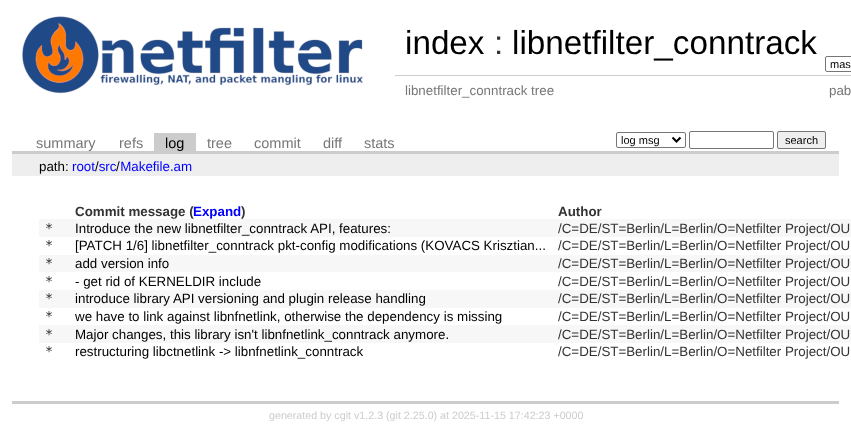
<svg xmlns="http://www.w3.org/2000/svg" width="851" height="429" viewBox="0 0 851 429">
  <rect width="100%" height="100%" fill="rgb(255,255,255)"/>
  <image x="22" y="16" width="341" height="78" href="pic1.png"/>
  <text x="405" y="54" font-family="Liberation Sans" font-size="33.25" fill="rgb(0,0,0)">index</text>
  <text x="494" y="54" font-family="Liberation Sans" font-size="33.25" fill="rgb(51,51,51)">:</text>
  <text x="512" y="54" font-family="Liberation Sans" font-size="33.25" fill="rgb(0,0,0)">libnetfilter_conntrack</text>
  <rect x="825.5" y="56.5" width="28" height="15" rx="1.5" fill="none" stroke="rgb(118,118,118)"/>
  <text x="830" y="68" font-family="Liberation Sans" font-size="11" fill="rgb(0,0,0)">mas</text>
  <text x="405" y="95" font-family="Liberation Sans" font-size="13.35" fill="rgb(119,119,119)">libnetfilter_conntrack tree</text>
  <rect x="395" y="75" width="456" height="1" fill="rgb(204,204,204)"/>
  <text x="829" y="95" font-family="Liberation Sans" font-size="13.35" fill="rgb(119,119,119)">pab</text>
  <rect x="12" y="151" width="827" height="3" fill="rgb(204,204,204)"/>
  <g font-family="Liberation Sans" font-size="14.5" fill="rgb(119,119,119)">
    <text x="36" y="148">summary</text>
    <text x="119" y="148">refs</text>
  </g>
  <rect x="154" y="133" width="42" height="18" fill="rgb(204,204,204)"/>
  <text x="165" y="148" font-family="Liberation Sans" font-size="14.5" fill="rgb(0,0,0)">log</text>
  <g font-family="Liberation Sans" font-size="14.5" fill="rgb(119,119,119)">
    <text x="207" y="148">tree</text>
    <text x="254" y="148">commit</text>
    <text x="323" y="148">diff</text>
    <text x="364" y="148">stats</text>
  </g>
  <rect x="616.5" y="132.5" width="69" height="15" rx="1.5" fill="none" stroke="rgb(118,118,118)"/>
  <path d="M672.5 137.5L676.5 141.5L680.5 137.5" fill="none" stroke="rgb(0,0,0)" stroke-width="2"/>
  <text x="621" y="144" font-family="Liberation Sans" font-size="11" fill="rgb(0,0,0)">log msg</text>
  <rect x="689.5" y="131.5" width="84" height="17" rx="1.5" fill="none" stroke="rgb(118,118,118)"/>
  <rect x="777.5" y="131.5" width="48" height="17" rx="1.5" fill="rgb(239,239,239)" stroke="rgb(118,118,118)"/>
  <text x="785" y="144" font-family="Liberation Sans" font-size="11" fill="rgb(0,0,0)">search</text>
  <rect x="12" y="154" width="827" height="22" fill="rgb(238,238,238)"/>
  <text x="39" y="171" font-family="Liberation Sans" font-size="13.35" fill="rgb(0,0,0)">path:</text>
  <text x="72" y="171" font-family="Liberation Sans" font-size="13.35" fill="rgb(0,0,255)">root src Makefile.am</text>
  <g font-family="Liberation Sans" font-size="13.35" fill="rgb(0,0,0)">
    <text x="95" y="171">/</text>
    <text x="116" y="171">/</text>
  </g>
  <rect x="12" y="401" width="827" height="3" fill="rgb(204,204,204)"/>
  <text x="75" y="216" font-family="Liberation Sans" font-size="13.35" font-weight="bold" fill="rgb(51,51,51)">Commit message (</text>
  <text x="193" y="216" font-family="Liberation Sans" font-size="13.35" font-weight="bold" fill="rgb(0,0,255)">Expand</text>
  <g font-family="Liberation Sans" font-size="13.35" font-weight="bold" fill="rgb(51,51,51)">
    <text x="241" y="216">)</text>
    <text x="558" y="216">Author</text>
  </g>
  <rect x="39" y="219" width="812" height="18" fill="rgb(247,247,247)"/>
  <text x="45" y="233" font-family="DejaVu Sans Mono" font-size="13.35" fill="rgb(51,51,51)">*</text>
  <text x="75" y="233" font-family="Liberation Sans" font-size="13.35" fill="rgb(0,0,0)">Introduce the new libnetfilter_conntrack API, features:</text>
  <text x="558" y="233" font-family="Liberation Sans" font-size="13.35" fill="rgb(51,51,51)">/C=DE/ST=Berlin/L=Berlin/O=Netfilter Project/OU</text>
  <text x="45" y="250" font-family="DejaVu Sans Mono" font-size="13.35" fill="rgb(51,51,51)">*</text>
  <text x="75" y="250" font-family="Liberation Sans" font-size="13.35" fill="rgb(0,0,0)">[PATCH 1/6] libnetfilter_conntrack pkt-config modifications (KOVACS Krisztian...</text>
  <text x="558" y="250" font-family="Liberation Sans" font-size="13.35" fill="rgb(51,51,51)">/C=DE/ST=Berlin/L=Berlin/O=Netfilter Project/OU</text>
  <rect x="39" y="255" width="812" height="17" fill="rgb(247,247,247)"/>
  <text x="45" y="268" font-family="DejaVu Sans Mono" font-size="13.35" fill="rgb(51,51,51)">*</text>
  <text x="75" y="268" font-family="Liberation Sans" font-size="13.35" fill="rgb(0,0,0)">add version info</text>
  <text x="558" y="268" font-family="Liberation Sans" font-size="13.35" fill="rgb(51,51,51)">/C=DE/ST=Berlin/L=Berlin/O=Netfilter Project/OU</text>
  <text x="45" y="286" font-family="DejaVu Sans Mono" font-size="13.35" fill="rgb(51,51,51)">*</text>
  <text x="75" y="286" font-family="Liberation Sans" font-size="13.35" fill="rgb(0,0,0)">- get rid of KERNELDIR include</text>
  <text x="558" y="286" font-family="Liberation Sans" font-size="13.35" fill="rgb(51,51,51)">/C=DE/ST=Berlin/L=Berlin/O=Netfilter Project/OU</text>
  <rect x="39" y="290" width="812" height="18" fill="rgb(247,247,247)"/>
  <text x="45" y="303" font-family="DejaVu Sans Mono" font-size="13.35" fill="rgb(51,51,51)">*</text>
  <text x="75" y="303" font-family="Liberation Sans" font-size="13.35" fill="rgb(0,0,0)">introduce library API versioning and plugin release handling</text>
  <text x="558" y="303" font-family="Liberation Sans" font-size="13.35" fill="rgb(51,51,51)">/C=DE/ST=Berlin/L=Berlin/O=Netfilter Project/OU</text>
  <text x="45" y="321" font-family="DejaVu Sans Mono" font-size="13.35" fill="rgb(51,51,51)">*</text>
  <text x="75" y="321" font-family="Liberation Sans" font-size="13.35" fill="rgb(0,0,0)">we have to link against libnfnetlink, otherwise the dependency is missing</text>
  <text x="558" y="321" font-family="Liberation Sans" font-size="13.35" fill="rgb(51,51,51)">/C=DE/ST=Berlin/L=Berlin/O=Netfilter Project/OU</text>
  <rect x="39" y="325" width="812" height="18" fill="rgb(247,247,247)"/>
  <text x="45" y="339" font-family="DejaVu Sans Mono" font-size="13.35" fill="rgb(51,51,51)">*</text>
  <text x="75" y="339" font-family="Liberation Sans" font-size="13.35" fill="rgb(0,0,0)">Major changes, this library isn't libnfnetlink_conntrack anymore.</text>
  <text x="558" y="339" font-family="Liberation Sans" font-size="13.35" fill="rgb(51,51,51)">/C=DE/ST=Berlin/L=Berlin/O=Netfilter Project/OU</text>
  <text x="45" y="356" font-family="DejaVu Sans Mono" font-size="13.35" fill="rgb(51,51,51)">*</text>
  <text x="75" y="356" font-family="Liberation Sans" font-size="13.35" fill="rgb(0,0,0)">restructuring libctnetlink -&gt; libnfnetlink_conntrack</text>
  <text x="558" y="356" font-family="Liberation Sans" font-size="13.35" fill="rgb(51,51,51)">/C=DE/ST=Berlin/L=Berlin/O=Netfilter Project/OU</text>
  <text x="269" y="419" font-family="Liberation Sans" font-size="10.7" fill="rgb(204,204,204)">generated by cgit v1.2.3 (git 2.25.0) at 2025-11-15 17:42:23 +0000</text>
</svg>
